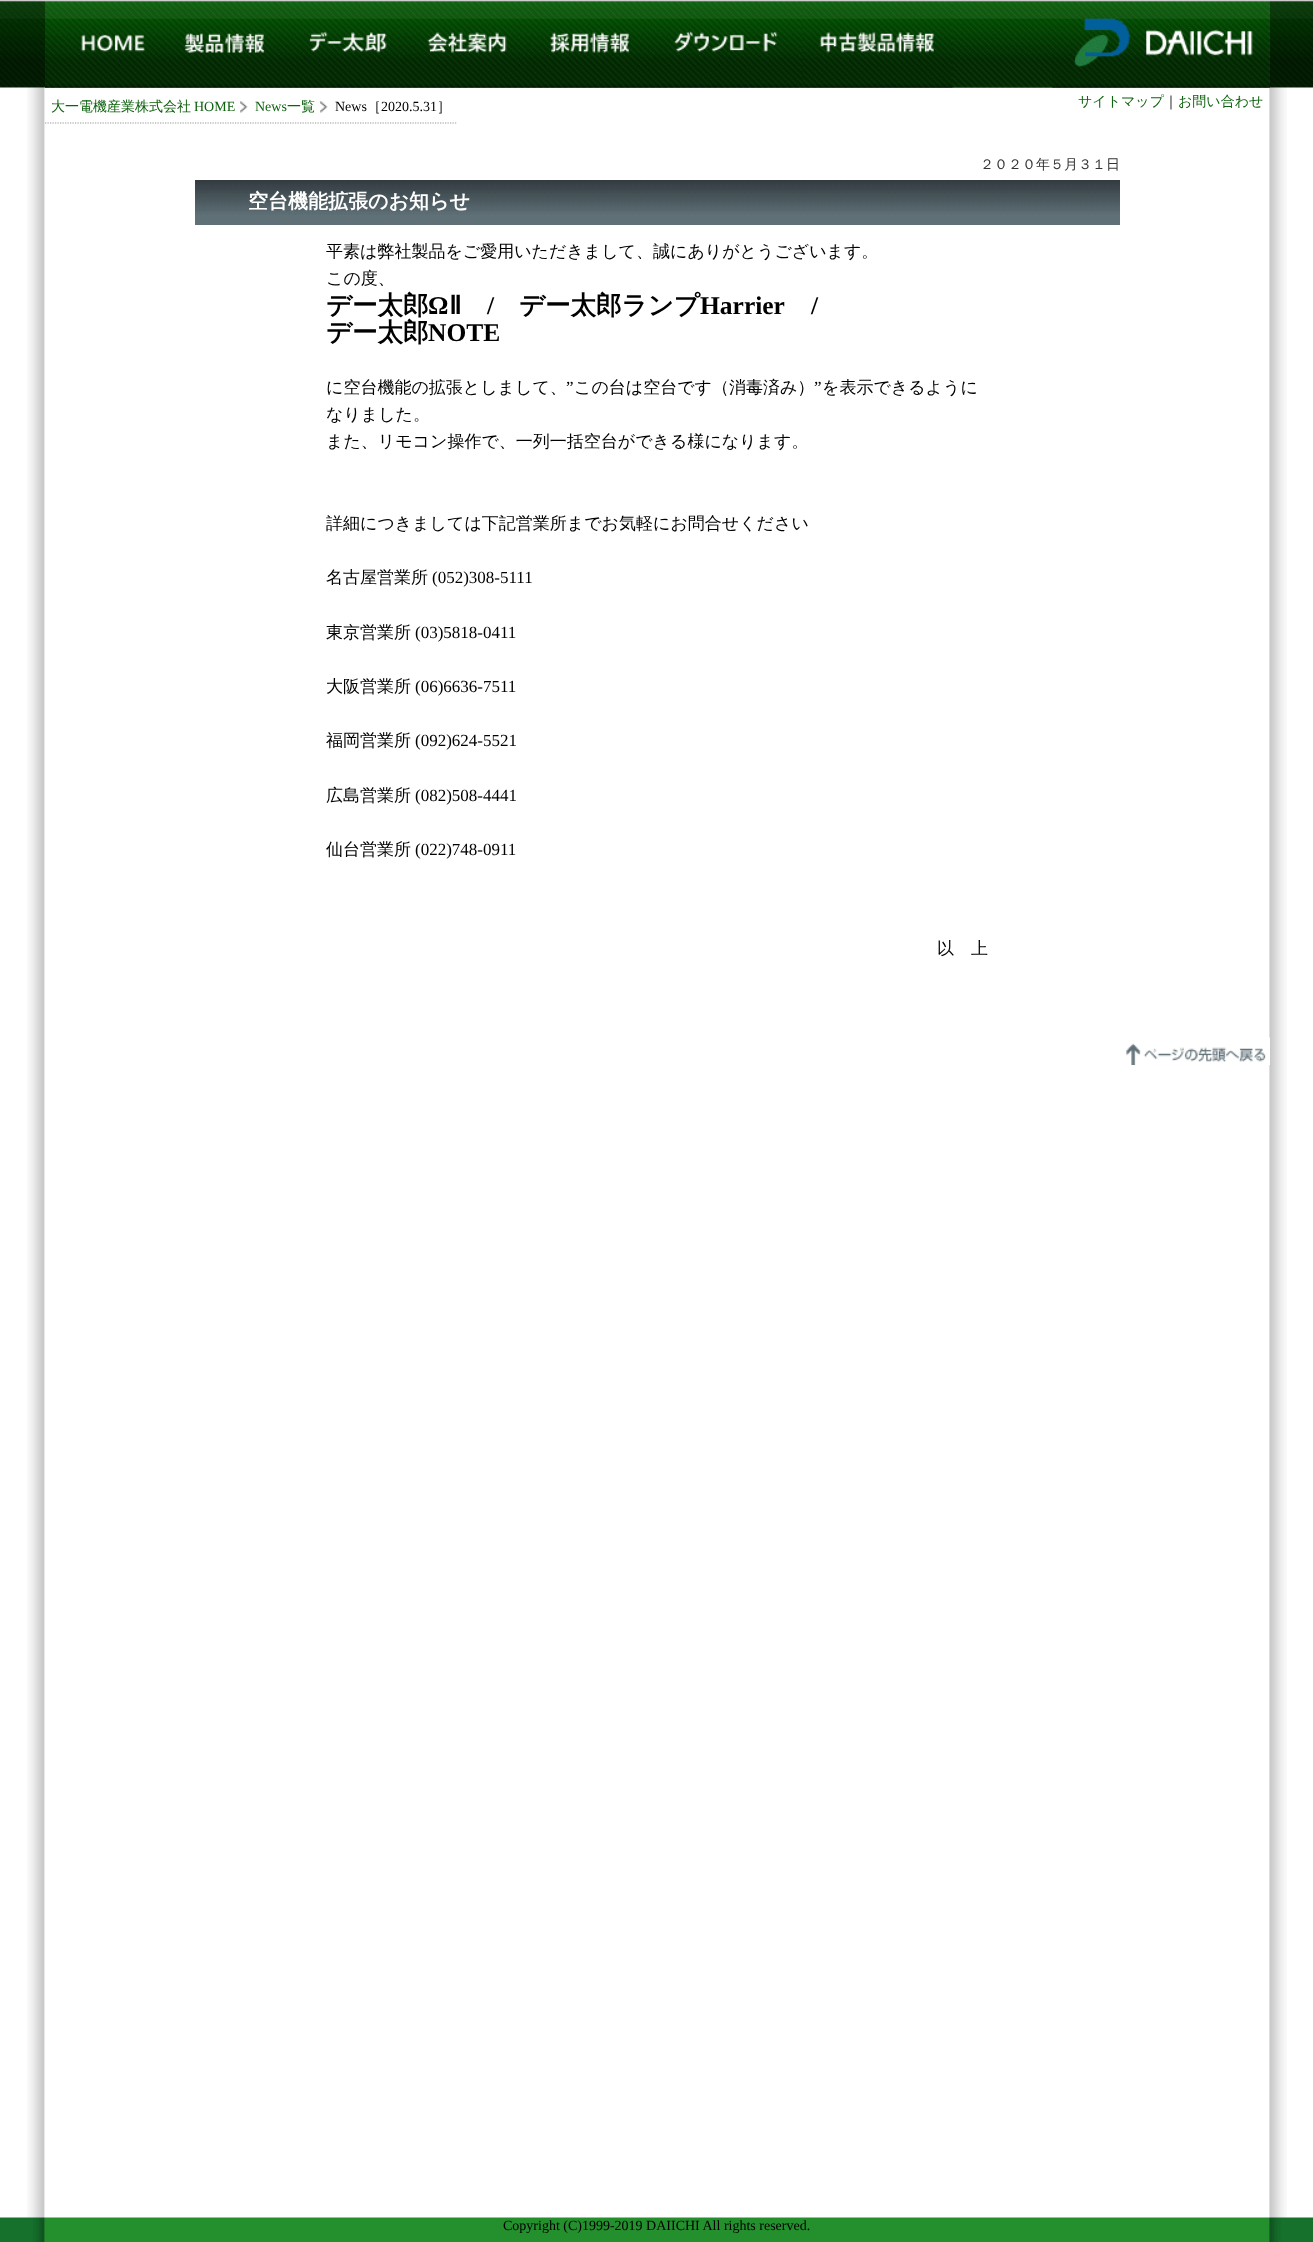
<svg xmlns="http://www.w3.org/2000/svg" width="1313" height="2242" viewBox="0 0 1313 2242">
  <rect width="100%" height="100%" fill="rgb(255,255,255)"/>
  <image x="27" y="87" width="1260" height="2131" href="pic1.png"/>
  <image x="0" y="0" width="1313" height="88" href="pic2.png"/>
  <image x="45" y="0" width="1225" height="88" href="pic3.png"/>
  <image x="45" y="0" width="119" height="88" href="pic4.png"/>
  <image x="163" y="0" width="122" height="88" href="pic5.png"/>
  <image x="285" y="0" width="122" height="88" href="pic6.png"/>
  <image x="406" y="0" width="122" height="88" href="pic7.png"/>
  <image x="527" y="0" width="122" height="88" href="pic8.png"/>
  <image x="648" y="0" width="155" height="88" href="pic9.png"/>
  <image x="802" y="0" width="151" height="88" href="pic10.png"/>
  <image x="1052" y="0" width="218" height="88" href="pic11.png"/>
  <path d="M45 123H457.5" fill="none" stroke="rgb(153,153,153)" stroke-width="1.2" stroke-dasharray="1.25 1.25"/>
  <text x="51" y="111" font-family="WenQuanYi Zen Hei" font-size="14" font-weight="500" fill="rgb(15,98,15)">大一電機産業株式会社</text>
  <text x="194" y="111" font-family="Liberation Serif" font-size="14" fill="rgb(15,98,15)">HOME</text>
  <image x="240" y="101" width="8" height="12" href="pic12.png"/>
  <text x="255" y="111" font-family="Liberation Serif" font-size="14" fill="rgb(15,98,15)">News</text>
  <text x="287" y="111" font-family="WenQuanYi Zen Hei" font-size="14" font-weight="500" fill="rgb(15,98,15)">一覧</text>
  <image x="320" y="101" width="8" height="12" href="pic12.png"/>
  <text x="335" y="111" font-family="Liberation Serif" font-size="14" fill="rgb(0,0,0)">News</text>
  <text x="367" y="111" font-family="WenQuanYi Zen Hei" font-size="14" font-weight="500" fill="rgb(0,0,0)">［</text>
  <text x="381" y="111" font-family="Liberation Serif" font-size="14" fill="rgb(0,0,0)">2020.5.31</text>
  <text x="437" y="111" font-family="WenQuanYi Zen Hei" font-size="14" font-weight="500" fill="rgb(0,0,0)">］</text>
  <text x="1078" y="106" font-family="WenQuanYi Zen Hei" font-size="14" font-weight="500" fill="rgb(15,98,15)">サイトマップ</text>
  <text x="1164" y="106" font-family="WenQuanYi Zen Hei" font-size="14" font-weight="500" fill="rgb(0,0,0)">｜</text>
  <text x="1178" y="106" font-family="WenQuanYi Zen Hei" font-size="14" font-weight="500" fill="rgb(15,98,15)">お問い合わせ</text>
  <text x="980" y="169" font-family="WenQuanYi Zen Hei" font-size="14" font-weight="500" fill="rgb(51,51,51)">２０２０年５月３１日</text>
  <image x="195" y="180" width="925" height="45" href="pic13.png"/>
  <text x="248" y="208" font-family="WenQuanYi Zen Hei" font-size="20" font-weight="bold" fill="rgb(255,255,255)">空台機能拡張のお知らせ</text>
  <g font-family="WenQuanYi Zen Hei" font-size="17" font-weight="500" fill="rgb(0,0,0)">
    <text>
      <tspan x="326" y="257">平素は弊社製品をご愛用いただきまして、誠にありがとうございます。</tspan>
      <tspan x="326" y="284">この度、</tspan>
    </text>
  </g>
  <text x="326" y="314" font-family="WenQuanYi Zen Hei" font-size="25.5" font-weight="bold" fill="rgb(0,0,0)">デー太郎</text>
  <text x="428" y="314" font-family="Liberation Serif" font-size="25.5" font-weight="bold" fill="rgb(0,0,0)">Ω</text>
  <text x="449" y="314" font-family="DejaVu Sans" font-size="25.5" font-weight="bold" fill="rgb(0,0,0)">Ⅱ</text>
  <text x="487" y="314" font-family="Liberation Serif" font-size="25.5" font-weight="bold" fill="rgb(0,0,0)">/</text>
  <text x="519" y="314" font-family="WenQuanYi Zen Hei" font-size="25.5" font-weight="bold" fill="rgb(0,0,0)">デー太郎ランプ</text>
  <g font-family="Liberation Serif" font-size="25.5" font-weight="bold" fill="rgb(0,0,0)">
    <text x="700" y="314">Harrier</text>
    <text x="811" y="314">/</text>
  </g>
  <text x="326" y="341" font-family="WenQuanYi Zen Hei" font-size="25.5" font-weight="bold" fill="rgb(0,0,0)">デー太郎</text>
  <text x="428" y="341" font-family="Liberation Serif" font-size="25.5" font-weight="bold" fill="rgb(0,0,0)">NOTE</text>
  <text x="326" y="393" font-family="WenQuanYi Zen Hei" font-size="17" font-weight="500" fill="rgb(0,0,0)">に空台機能の拡張としまして、</text>
  <text x="566" y="393" font-family="Liberation Serif" font-size="17" fill="rgb(0,0,0)">”</text>
  <text x="574" y="393" font-family="WenQuanYi Zen Hei" font-size="17" font-weight="500" fill="rgb(0,0,0)">この台は空台です（消毒済み）</text>
  <text x="814" y="393" font-family="Liberation Serif" font-size="17" fill="rgb(0,0,0)">”</text>
  <g font-family="WenQuanYi Zen Hei" font-size="17" font-weight="500" fill="rgb(0,0,0)">
    <text x="822" y="393">を表示できるように</text>
    <text>
      <tspan x="326" y="420">なりました。</tspan>
      <tspan x="326" y="447">また、リモコン操作で、一列一括空台ができる様になります。</tspan>
    </text>
    <text x="326" y="529">詳細につきましては下記営業所までお気軽にお問合せください</text>
    <text x="326" y="583">名古屋営業所</text>
  </g>
  <text x="432" y="583" font-family="Liberation Serif" font-size="17" fill="rgb(0,0,0)">(052)308-5111</text>
  <text x="326" y="638" font-family="WenQuanYi Zen Hei" font-size="17" font-weight="500" fill="rgb(0,0,0)">東京営業所</text>
  <text x="415" y="638" font-family="Liberation Serif" font-size="17" fill="rgb(0,0,0)">(03)5818-0411</text>
  <text x="326" y="692" font-family="WenQuanYi Zen Hei" font-size="17" font-weight="500" fill="rgb(0,0,0)">大阪営業所</text>
  <text x="415" y="692" font-family="Liberation Serif" font-size="17" fill="rgb(0,0,0)">(06)6636-7511</text>
  <text x="326" y="746" font-family="WenQuanYi Zen Hei" font-size="17" font-weight="500" fill="rgb(0,0,0)">福岡営業所</text>
  <text x="415" y="746" font-family="Liberation Serif" font-size="17" fill="rgb(0,0,0)">(092)624-5521</text>
  <text x="326" y="801" font-family="WenQuanYi Zen Hei" font-size="17" font-weight="500" fill="rgb(0,0,0)">広島営業所</text>
  <text x="415" y="801" font-family="Liberation Serif" font-size="17" fill="rgb(0,0,0)">(082)508-4441</text>
  <text x="326" y="855" font-family="WenQuanYi Zen Hei" font-size="17" font-weight="500" fill="rgb(0,0,0)">仙台営業所</text>
  <text x="415" y="855" font-family="Liberation Serif" font-size="17" fill="rgb(0,0,0)">(022)748-0911</text>
  <text x="937" y="954" font-family="WenQuanYi Zen Hei" font-size="17" font-weight="500" fill="rgb(0,0,0)">以　上</text>
  <image x="1126" y="1037" width="144" height="28" href="pic14.png"/>
  <image x="0" y="2217" width="1313" height="25" href="pic15.png"/>
  <text x="503" y="2230" font-family="Liberation Serif" font-size="14" fill="rgb(0,0,0)">Copyright (C)1999-2019 DAIICHI All rights reserved.</text>
</svg>
